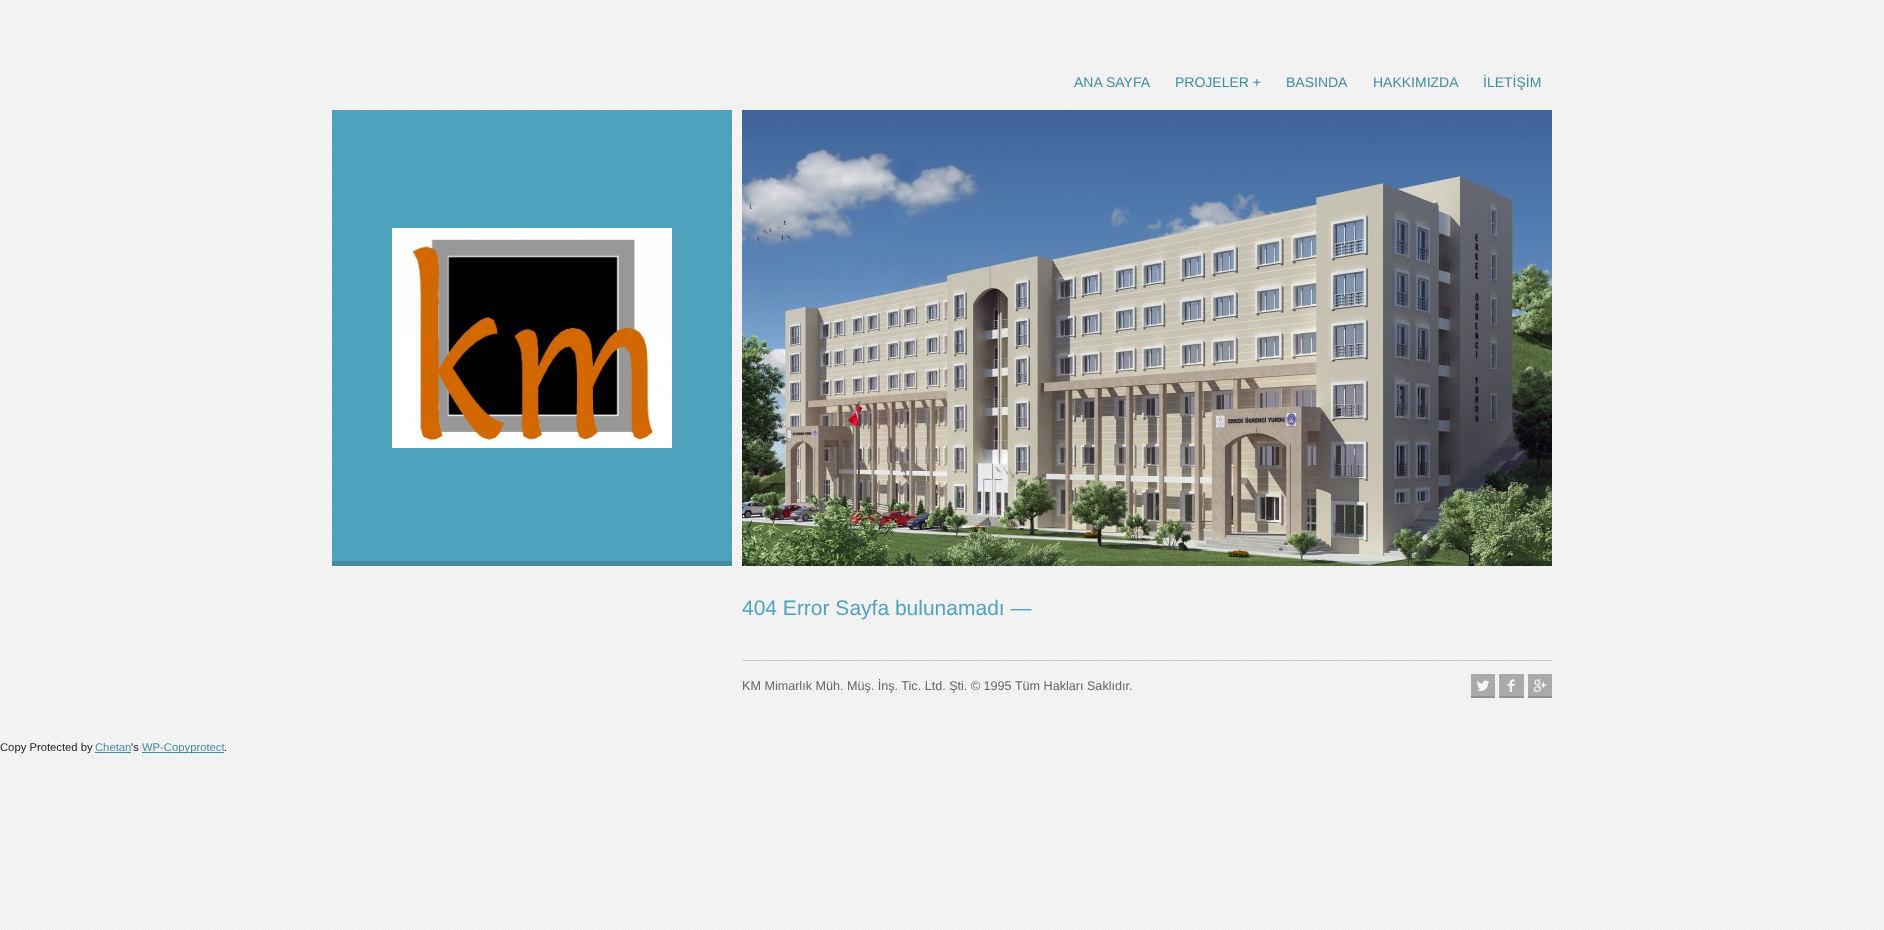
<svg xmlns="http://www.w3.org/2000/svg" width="1884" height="930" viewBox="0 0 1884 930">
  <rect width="100%" height="100%" fill="rgb(247,247,247)"/>
  <image x="0" y="0" width="1884" height="930" href="pic1.png"/>
  <g font-family="Liberation Sans" font-size="14" fill="rgb(66,138,161)">
    <text x="1074" y="87">ANA SAYFA</text>
    <text x="1175" y="87">PROJELER +</text>
    <text x="1286" y="87">BASINDA</text>
    <text x="1373" y="87">HAKKIMIZDA</text>
    <text x="1483" y="87">İLETİŞİM</text>
  </g>
  <rect x="332" y="110" width="400" height="451" fill="rgb(78,162,189)"/>
  <rect x="332" y="561" width="400" height="5" fill="rgb(66,138,161)"/>
  <image x="392" y="228" width="280" height="220" href="pic2.png"/>
  <image x="742" y="110" width="810" height="456" href="pic3.png"/>
  <rect x="742" y="561" width="810" height="5" fill="rgba(0,0,0,0.15)"/>
  <text x="742" y="615" font-family="Liberation Sans" font-size="21" fill="rgb(78,162,189)">404 Error Sayfa bulunamadı —</text>
  <rect x="742" y="660" width="810" height="1" fill="rgba(0,0,0,0.15)"/>
  <text x="742" y="690" font-family="Liberation Sans" font-size="12.6" fill="rgb(102,102,102)">KM Mimarlık Müh. Müş. İnş. Tic. Ltd. Şti. © 1995 Tüm Hakları Saklıdır.</text>
  <rect x="1471" y="674" width="24" height="22" fill="rgb(170,170,170)"/>
  <rect x="1471" y="696" width="24" height="2" fill="rgb(145,145,145)"/>
  <image x="1477" y="680" width="13" height="11" href="pic4.png"/>
  <rect x="1499" y="674" width="25" height="22" fill="rgb(170,170,170)"/>
  <rect x="1499" y="696" width="25" height="2" fill="rgb(145,145,145)"/>
  <image x="1507" y="679" width="8" height="13" href="pic5.png"/>
  <rect x="1528" y="674" width="24" height="22" fill="rgb(170,170,170)"/>
  <rect x="1528" y="696" width="24" height="2" fill="rgb(145,145,145)"/>
  <image x="1533" y="679" width="14" height="13" href="pic6.png"/>
  <text x="0" y="751" font-family="Liberation Sans" font-size="11.25" fill="rgb(34,34,34)">Copy Protected by</text>
  <text x="95" y="751" font-family="Liberation Sans" font-size="11.25" fill="rgb(66,138,161)">Chetan</text>
  <text x="131" y="751" font-family="Liberation Sans" font-size="11.25" fill="rgb(34,34,34)">'s</text>
  <rect x="95" y="752" width="36" height="1" fill="rgb(66,138,161)"/>
  <rect x="142" y="752" width="82" height="1" fill="rgb(66,138,161)"/>
  <text x="142" y="751" font-family="Liberation Sans" font-size="11.25" fill="rgb(66,138,161)">WP-Copyprotect</text>
  <text x="224" y="751" font-family="Liberation Sans" font-size="11.25" fill="rgb(34,34,34)">.</text>
</svg>
